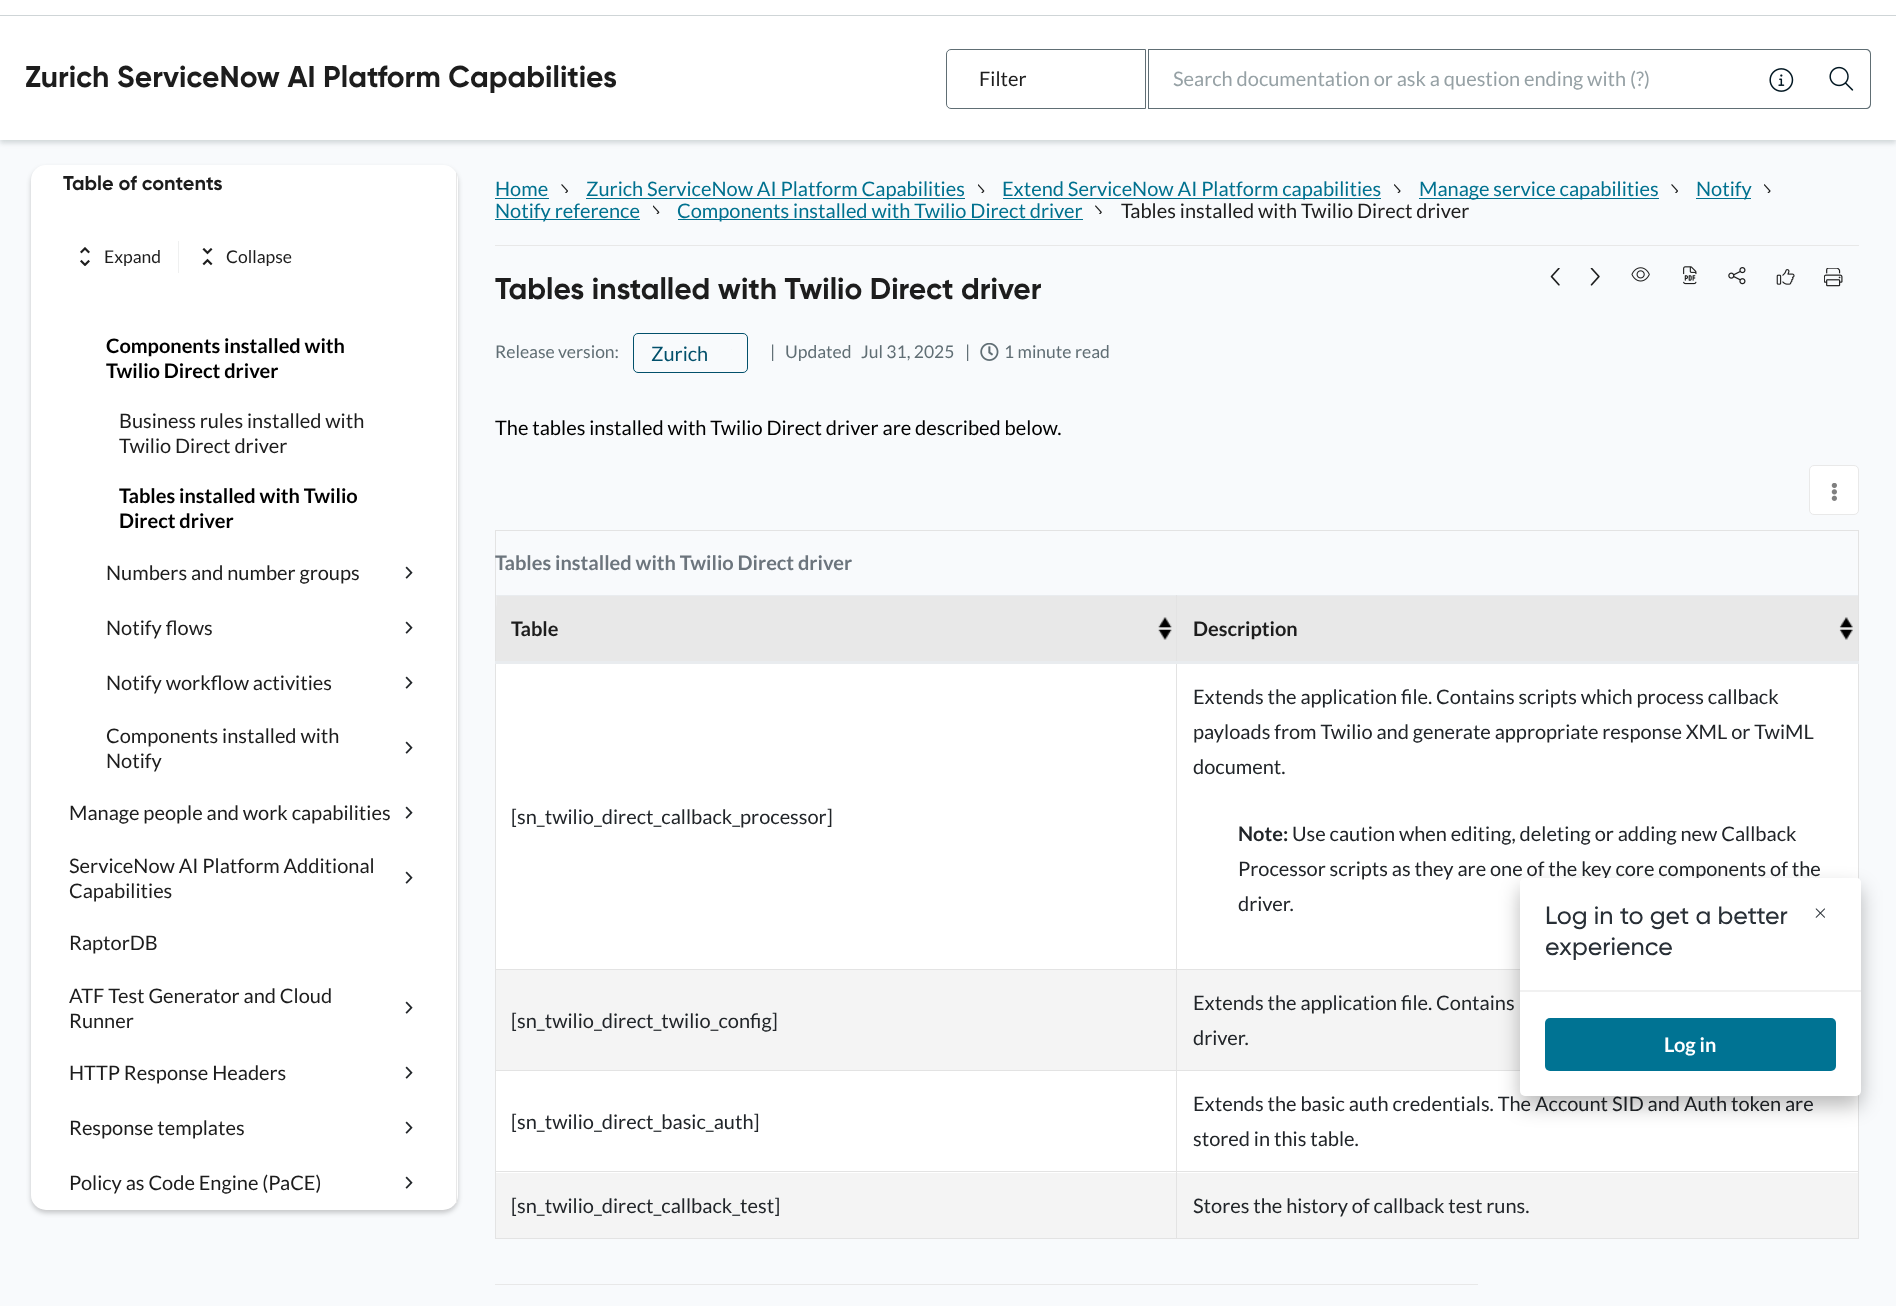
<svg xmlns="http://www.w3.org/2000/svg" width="1896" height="1306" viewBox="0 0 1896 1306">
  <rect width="100%" height="100%" fill="rgb(248,250,252)"/>
  <rect x="0" y="18" width="1896" height="125" fill="rgba(96,110,116,0.25)" filter="blur(2.5px)"/>
  <rect x="0" y="0" width="1896" height="15" fill="rgb(255,255,255)"/>
  <rect x="0" y="16" width="1896" height="124" fill="rgb(255,255,255)"/>
  <rect x="0" y="15" width="1896" height="1" fill="rgb(207,213,215)"/>
  <text x="25" y="87" font-family="Gilroy" font-size="30" font-weight="bold" fill="rgb(29,29,29)">Zurich ServiceNow AI Platform Capabilities</text>
  <path d="M951 49.5H1145.5V108.5H951C948.5 108.5 946.5 106.5 946.5 104V54C946.5 51.5 948.5 49.5 951 49.5Z" fill="none" stroke="rgb(96,110,116)"/>
  <text x="979" y="86" font-family="Lato" font-size="20" fill="rgb(29,29,29)">Filter</text>
  <rect x="1148" y="49" width="663" height="1" fill="rgb(96,110,116)"/>
  <rect x="1148" y="108" width="663" height="1" fill="rgb(96,110,116)"/>
  <image x="1769" y="68" width="25" height="24" href="pic1.png"/>
  <path d="M1811 49H1866C1869 49 1871 51 1871 54V104C1871 107 1869 109 1866 109H1811ZM1811 50H1866C1868 50 1870 52 1870 54V104C1870 106 1868 108 1866 108H1811Z" fill="rgb(96,110,116)" fill-rule="evenodd"/>
  <image x="1829" y="66" width="25" height="25" href="pic2.png"/>
  <rect x="1148" y="49" width="1" height="60" fill="rgb(96,110,116)"/>
  <text x="1173" y="86" font-family="Lato" font-size="20" fill="rgb(150,161,165)">Search documentation or ask a question ending with (?)</text>
  <rect x="31" y="168" width="427" height="1045" rx="15" fill="rgba(0,0,0,0.2)" filter="blur(2.5px)"/>
  <rect x="31" y="165" width="427" height="1045" rx="15" fill="rgb(255,255,255)"/>
  <rect x="456" y="173" width="1" height="1030" fill="rgb(232,232,232)"/>
  <text x="63" y="190" font-family="Gilroy" font-size="20" font-weight="bold" fill="rgb(29,29,29)">Table of contents</text>
  <image x="80" y="247" width="10" height="19" href="pic3.png"/>
  <text x="104" y="263" font-family="Lato" font-size="17.5" fill="rgb(29,29,29)">Expand</text>
  <rect x="178" y="241" width="1" height="32" fill="rgb(239,240,240)"/>
  <image x="202" y="248" width="11" height="18" href="pic4.png"/>
  <text x="226" y="263" font-family="Lato" font-size="17.5" fill="rgb(29,29,29)">Collapse</text>
  <g font-family="Lato" font-size="20" font-weight="bold" fill="rgb(0,0,0)">
    <text>
      <tspan x="106" y="353">Components installed with</tspan>
      <tspan x="106" y="378">Twilio Direct driver</tspan>
    </text>
  </g>
  <g font-family="Lato" font-size="20" fill="rgb(29,29,29)">
    <text>
      <tspan x="119" y="428">Business rules installed with</tspan>
      <tspan x="119" y="453">Twilio Direct driver</tspan>
    </text>
  </g>
  <g font-family="Lato" font-size="20" font-weight="bold" fill="rgb(0,0,0)">
    <text>
      <tspan x="119" y="503">Tables installed with Twilio</tspan>
      <tspan x="119" y="528">Direct driver</tspan>
    </text>
  </g>
  <text x="106" y="580" font-family="Lato" font-size="20" fill="rgb(29,29,29)">Numbers and number groups</text>
  <image x="405" y="566" width="8" height="13" href="pic5.png"/>
  <text x="106" y="635" font-family="Lato" font-size="20" fill="rgb(29,29,29)">Notify flows</text>
  <image x="405" y="621" width="8" height="13" href="pic5.png"/>
  <text x="106" y="690" font-family="Lato" font-size="20" fill="rgb(29,29,29)">Notify workflow activities</text>
  <image x="405" y="676" width="8" height="13" href="pic5.png"/>
  <g font-family="Lato" font-size="20" fill="rgb(29,29,29)">
    <text>
      <tspan x="106" y="743">Components installed with</tspan>
      <tspan x="106" y="768">Notify</tspan>
    </text>
  </g>
  <image x="405" y="741" width="8" height="13" href="pic5.png"/>
  <text x="69" y="820" font-family="Lato" font-size="20" fill="rgb(29,29,29)">Manage people and work capabilities</text>
  <image x="405" y="806" width="8" height="13" href="pic5.png"/>
  <g font-family="Lato" font-size="20" fill="rgb(29,29,29)">
    <text>
      <tspan x="69" y="873">ServiceNow AI Platform Additional</tspan>
      <tspan x="69" y="898">Capabilities</tspan>
    </text>
  </g>
  <image x="405" y="871" width="8" height="13" href="pic5.png"/>
  <g font-family="Lato" font-size="20" fill="rgb(29,29,29)">
    <text x="69" y="950">RaptorDB</text>
    <text>
      <tspan x="69" y="1003">ATF Test Generator and Cloud</tspan>
      <tspan x="69" y="1028">Runner</tspan>
    </text>
  </g>
  <image x="405" y="1001" width="8" height="13" href="pic5.png"/>
  <text x="69" y="1080" font-family="Lato" font-size="20" fill="rgb(29,29,29)">HTTP Response Headers</text>
  <image x="405" y="1066" width="8" height="13" href="pic5.png"/>
  <text x="69" y="1135" font-family="Lato" font-size="20" fill="rgb(29,29,29)">Response templates</text>
  <image x="405" y="1121" width="8" height="13" href="pic5.png"/>
  <text x="69" y="1190" font-family="Lato" font-size="20" fill="rgb(29,29,29)">Policy as Code Engine (PaCE)</text>
  <image x="405" y="1176" width="8" height="13" href="pic5.png"/>
  <rect x="495" y="245" width="1364" height="1" fill="rgb(232,232,232)"/>
  <text x="495" y="196" font-family="Lato" font-size="20" fill="rgb(0,113,143)">Home</text>
  <rect x="495" y="198" width="54" height="1" fill="rgb(0,113,143)"/>
  <image x="561" y="184" width="7" height="9" href="pic6.png"/>
  <rect x="586" y="198" width="379" height="1" fill="rgb(0,113,143)"/>
  <text x="586" y="196" font-family="Lato" font-size="20" fill="rgb(0,113,143)">Zurich ServiceNow AI Platform Capabilities</text>
  <image x="978" y="184" width="7" height="9" href="pic7.png"/>
  <rect x="1003" y="198" width="378" height="1" fill="rgb(0,113,143)"/>
  <text x="1002" y="196" font-family="Lato" font-size="20" fill="rgb(0,113,143)">Extend ServiceNow AI Platform capabilities</text>
  <image x="1394" y="184" width="7" height="9" href="pic8.png"/>
  <rect x="1419" y="198" width="240" height="1" fill="rgb(0,113,143)"/>
  <text x="1419" y="196" font-family="Lato" font-size="20" fill="rgb(0,113,143)">Manage service capabilities</text>
  <image x="1671" y="184" width="7" height="9" href="pic6.png"/>
  <rect x="1696" y="198" width="55" height="1" fill="rgb(0,113,143)"/>
  <text x="1696" y="196" font-family="Lato" font-size="20" fill="rgb(0,113,143)">Notify</text>
  <image x="1764" y="184" width="7" height="9" href="pic8.png"/>
  <rect x="495" y="219" width="145" height="1" fill="rgb(0,113,143)"/>
  <text x="495" y="218" font-family="Lato" font-size="20" fill="rgb(0,113,143)">Notify reference</text>
  <image x="653" y="205" width="7" height="9" href="pic9.png"/>
  <rect x="678" y="219" width="405" height="1" fill="rgb(0,113,143)"/>
  <text x="677" y="218" font-family="Lato" font-size="20" fill="rgb(0,113,143)">Components installed with Twilio Direct driver</text>
  <image x="1095" y="205" width="7" height="9" href="pic10.png"/>
  <text x="1121" y="218" font-family="Lato" font-size="20" fill="rgb(29,29,29)">Tables installed with Twilio Direct driver</text>
  <text x="495" y="299" font-family="Gilroy" font-size="30" font-weight="bold" fill="rgb(29,29,29)">Tables installed with Twilio Direct driver</text>
  <image x="1550" y="268" width="10" height="18" href="pic11.png"/>
  <image x="1590" y="268" width="10" height="18" href="pic12.png"/>
  <image x="1631" y="267" width="19" height="15" href="pic13.png"/>
  <image x="1683" y="266" width="14" height="19" href="pic14.png"/>
  <image x="1728" y="267" width="18" height="18" href="pic15.png"/>
  <image x="1776" y="269" width="19" height="16" href="pic16.png"/>
  <image x="1824" y="268" width="19" height="19" href="pic17.png"/>
  <text x="495" y="358" font-family="Lato" font-size="17.5" fill="rgb(96,110,116)">Release version:</text>
  <rect x="633.5" y="333.5" width="114" height="39" rx="4.5" fill="none" stroke="rgb(2,80,107)"/>
  <text x="651" y="361" font-family="Lato" font-size="20" fill="rgb(2,80,107)">Zurich</text>
  <rect x="731" y="349" width="1" height="1" fill="rgb(244,246,248)"/>
  <g font-family="Lato" font-size="17.5" fill="rgb(96,110,116)">
    <text x="770" y="358">|</text>
    <text x="785" y="358">Updated</text>
    <text x="861" y="358">Jul 31, 2025</text>
    <text x="965" y="358">|</text>
  </g>
  <image x="980" y="343" width="19" height="18" href="pic18.png"/>
  <text x="1004" y="358" font-family="Lato" font-size="17.5" fill="rgb(96,110,116)">1 minute read</text>
  <text x="495" y="435" font-family="Lato" font-size="20" fill="rgb(0,0,0)">The tables installed with Twilio Direct driver are described below.</text>
  <rect x="1809.5" y="465.5" width="49" height="49" rx="4.5" fill="rgb(255,255,255)" stroke="rgb(233,233,233)"/>
  <image x="1831" y="483" width="6" height="18" href="pic19.png"/>
  <rect x="495" y="530" width="1364" height="1" fill="rgb(227,227,227)"/>
  <rect x="1858" y="530" width="1" height="65" fill="rgb(227,227,227)"/>
  <rect x="495" y="530" width="1" height="65" fill="rgb(227,227,227)"/>
  <text x="495" y="570" font-family="Lato" font-size="20" font-weight="bold" fill="rgb(108,117,125)">Tables installed with Twilio Direct driver</text>
  <path d="M509 596H1846C1853 596 1859 602 1859 609V663H496V609C496 602 502 596 509 596Z" fill="rgb(232,232,232)"/>
  <image x="496" y="596" width="676" height="44" href="pic20.png"/>
  <rect x="495" y="595" width="1364" height="1" fill="rgb(233,236,239)"/>
  <rect x="496" y="664" width="1362" height="305" fill="rgb(255,255,255)"/>
  <rect x="496" y="970" width="1024" height="100" fill="rgb(244,244,244)"/>
  <rect x="496" y="1071" width="1362" height="102" fill="rgb(255,255,255)"/>
  <rect x="496" y="1173" width="1362" height="65" fill="rgb(244,244,244)"/>
  <rect x="1858" y="1095" width="1" height="144" fill="rgb(227,227,227)"/>
  <rect x="1176" y="1238" width="683" height="1" fill="rgb(227,227,227)"/>
  <rect x="1176" y="1171" width="1" height="68" fill="rgb(227,227,227)"/>
  <rect x="1176" y="1171" width="683" height="1" fill="rgb(227,227,227)"/>
  <rect x="1176" y="1070" width="1" height="103" fill="rgb(227,227,227)"/>
  <rect x="1176" y="1070" width="344" height="1" fill="rgb(227,227,227)"/>
  <rect x="1176" y="969" width="1" height="102" fill="rgb(227,227,227)"/>
  <rect x="1176" y="969" width="344" height="1" fill="rgb(227,227,227)"/>
  <rect x="1176" y="663" width="1" height="307" fill="rgb(227,227,227)"/>
  <rect x="1176" y="595" width="1" height="69" fill="rgb(227,227,227)"/>
  <rect x="495" y="1238" width="683" height="1" fill="rgb(227,227,227)"/>
  <rect x="495" y="1171" width="1" height="68" fill="rgb(227,227,227)"/>
  <rect x="495" y="1171" width="683" height="1" fill="rgb(227,227,227)"/>
  <rect x="495" y="1070" width="1" height="103" fill="rgb(227,227,227)"/>
  <rect x="495" y="1070" width="683" height="1" fill="rgb(227,227,227)"/>
  <rect x="495" y="969" width="1" height="102" fill="rgb(227,227,227)"/>
  <rect x="495" y="969" width="683" height="1" fill="rgb(227,227,227)"/>
  <rect x="495" y="663" width="1" height="307" fill="rgb(227,227,227)"/>
  <rect x="495" y="595" width="1" height="69" fill="rgb(227,227,227)"/>
  <text x="511" y="636" font-family="Lato" font-size="20" font-weight="bold" fill="rgb(29,29,29)">Table</text>
  <image x="1839" y="596" width="19" height="44" href="pic21.png"/>
  <rect x="1858" y="663" width="1" height="216" fill="rgb(227,227,227)"/>
  <rect x="1858" y="595" width="1" height="69" fill="rgb(227,227,227)"/>
  <rect x="495" y="661" width="1364" height="3" fill="rgb(233,236,239)"/>
  <text x="1193" y="636" font-family="Lato" font-size="20" font-weight="bold" fill="rgb(29,29,29)">Description</text>
  <g font-family="Lato" font-size="20" fill="rgb(33,37,41)">
    <text x="511" y="824">[sn_twilio_direct_callback_processor]</text>
    <text>
      <tspan x="1193" y="704">Extends the application file. Contains scripts which process callback</tspan>
      <tspan x="1193" y="739">payloads from Twilio and generate appropriate response XML or TwiML</tspan>
      <tspan x="1193" y="774">document.</tspan>
    </text>
  </g>
  <text x="1238" y="841" font-family="Lato" font-size="20" font-weight="bold" fill="rgb(33,37,41)">Note:</text>
  <g font-family="Lato" font-size="20" fill="rgb(33,37,41)">
    <text x="1292" y="841">Use caution when editing, deleting or adding new Callback</text>
    <text>
      <tspan x="1238" y="876">Processor scripts as they are one of the key core components of the</tspan>
      <tspan x="1238" y="911">driver.</tspan>
    </text>
    <text x="511" y="1028">[sn_twilio_direct_twilio_config]</text>
    <text>
      <tspan x="1193" y="1010">Extends the application file. Contains</tspan>
      <tspan x="1193" y="1045">driver.</tspan>
    </text>
    <text x="511" y="1129">[sn_twilio_direct_basic_auth]</text>
    <text>
      <tspan x="1193" y="1111">Extends the basic auth credentials. The Account SID and Auth token are</tspan>
      <tspan x="1193" y="1146">stored in this table.</tspan>
    </text>
    <text x="511" y="1213">[sn_twilio_direct_callback_test]</text>
    <text x="1193" y="1213">Stores the history of callback test runs.</text>
  </g>
  <rect x="495" y="1284" width="983" height="1" fill="rgb(232,232,232)"/>
  <rect x="1520" y="888" width="341" height="218" rx="5" fill="rgba(0,0,0,0.27)" filter="blur(10px)"/>
  <rect x="1520" y="878" width="341" height="218" rx="5" fill="rgb(255,255,255)"/>
  <path d="M1525 878H1856C1859 878 1861 880 1861 883V991H1520V883C1520 880 1522 878 1525 878Z" fill="rgb(255,255,255)"/>
  <rect x="1520" y="990" width="341" height="2" fill="rgb(241,241,241)"/>
  <g font-family="Gilroy" font-size="25" font-weight="500" fill="rgb(40,47,54)">
    <text>
      <tspan x="1545" y="924">Log in to get a better</tspan>
      <tspan x="1545" y="955">experience</tspan>
    </text>
  </g>
  <image x="1815" y="908" width="10" height="10" href="pic22.png"/>
  <rect x="1545" y="1018" width="291" height="53" rx="5" fill="rgb(0,115,147)"/>
  <text x="1664" y="1052" font-family="Lato" font-size="20" font-weight="bold" fill="rgb(255,255,255)">Log in</text>
</svg>
